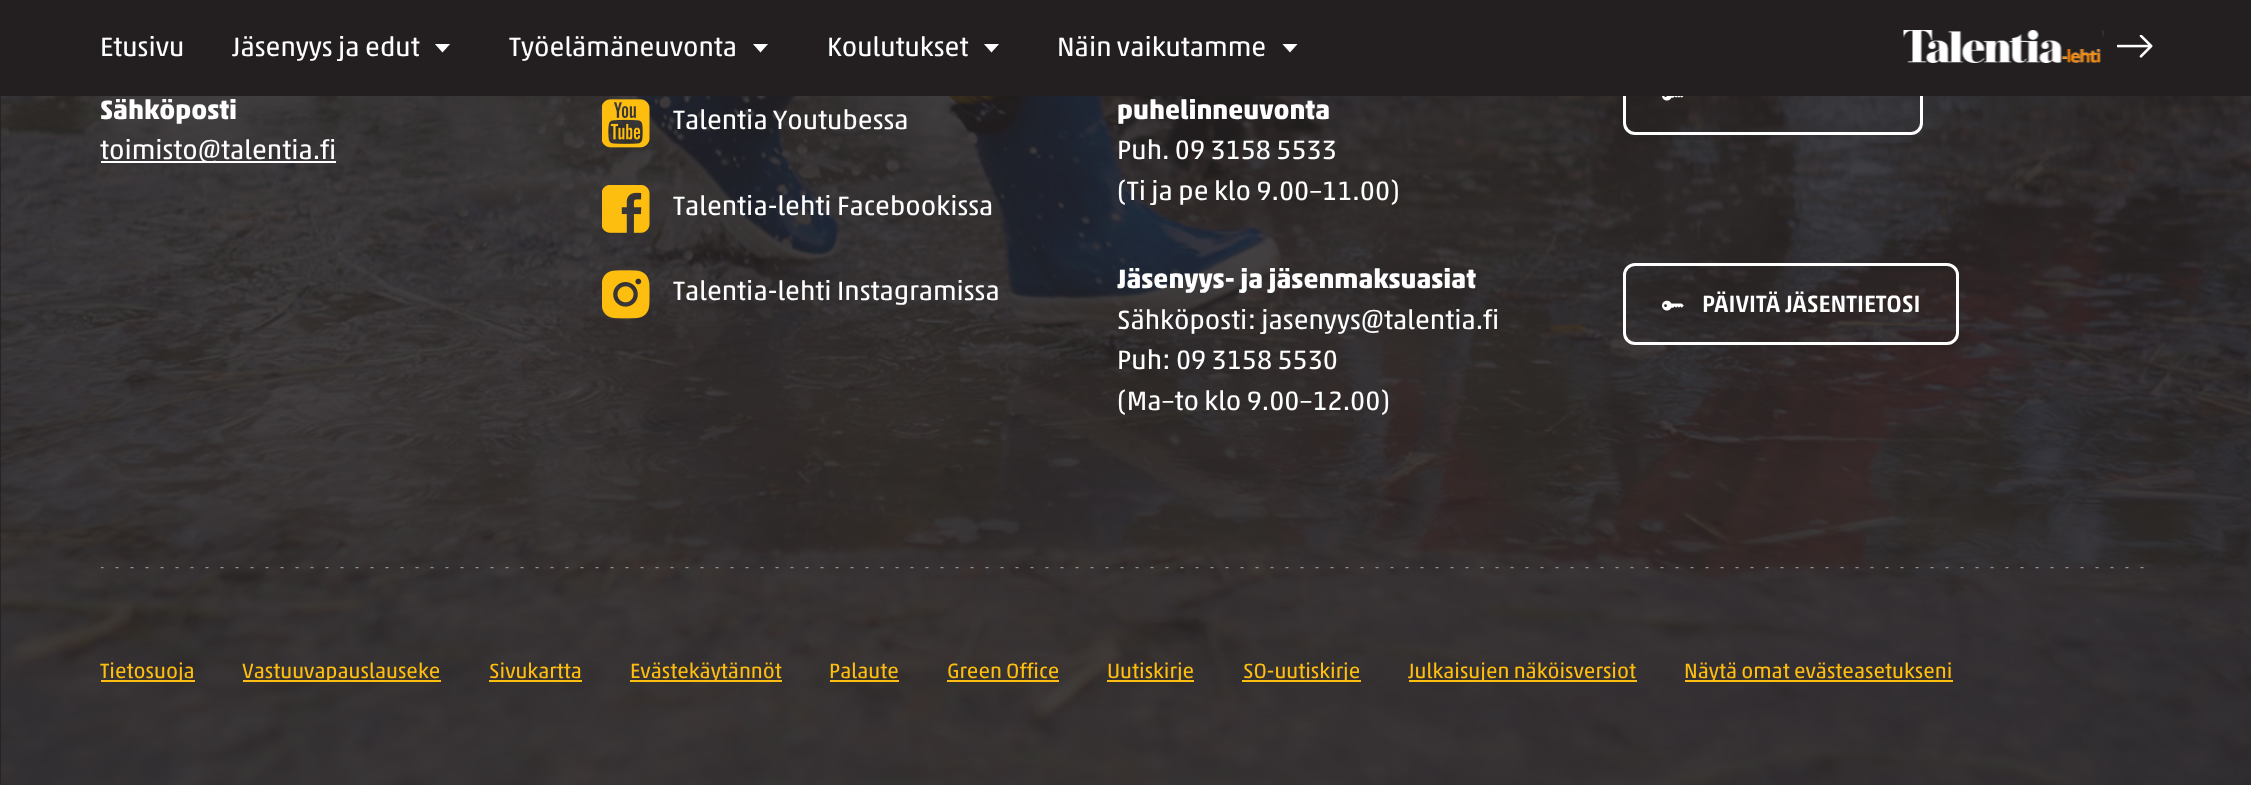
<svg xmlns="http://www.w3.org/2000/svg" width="2251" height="785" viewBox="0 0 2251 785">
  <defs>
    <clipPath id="clip1"><rect x="434" y="44" width="18" height="9"/></clipPath>
    <clipPath id="clip2"><rect x="752" y="44" width="18" height="9"/></clipPath>
    <clipPath id="clip3"><rect x="983" y="44" width="18" height="9"/></clipPath>
    <clipPath id="clip4"><rect x="1281" y="44" width="18" height="9"/></clipPath>
  </defs>
  <rect width="100%" height="100%" fill="rgb(35,31,32)"/>
  <image x="0" y="96" width="2251" height="689" href="pic3.png"/>
  <rect x="1624.5" y="54.5" width="297" height="79" rx="10.5" fill="none" stroke="rgb(255,255,255)" stroke-width="3"/>
  <rect x="1623" y="53" width="300" height="43" fill="rgb(35,31,32)"/>
  <g font-family="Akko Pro" font-size="27" fill="rgb(255,255,255)">
    <text x="100" y="56">Etusivu</text>
    <text x="232" y="56">Jäsenyys ja edut</text>
  </g>
  <g clip-path="url(#clip1)">
    <path d="M442.5 52.5L434.5 43.5H450.5Z" fill="rgb(255,255,255)"/>
  </g>
  <text x="509" y="56" font-family="Akko Pro" font-size="27" fill="rgb(255,255,255)">Työelämäneuvonta</text>
  <g clip-path="url(#clip2)">
    <path d="M760.5 52.5L752.5 43.5H768.5Z" fill="rgb(255,255,255)"/>
  </g>
  <text x="827" y="56" font-family="Akko Pro" font-size="27" fill="rgb(255,255,255)">Koulutukset</text>
  <g clip-path="url(#clip3)">
    <path d="M991.5 52.5L983.5 43.5H999.5Z" fill="rgb(255,255,255)"/>
  </g>
  <text x="1057" y="56" font-family="Akko Pro" font-size="27" fill="rgb(255,255,255)">Näin vaikutamme</text>
  <g clip-path="url(#clip4)">
    <path d="M1290 52.5L1282 43.5H1298Z" fill="rgb(255,255,255)"/>
  </g>
  <image x="1903" y="30" width="201" height="33" href="pic1.png"/>
  <image x="2117" y="35" width="36" height="23" href="pic2.png"/>
  <image x="101" y="567" width="2043" height="2" href="pic4.png"/>
  <text x="100" y="119" font-family="Akko Pro" font-size="27" font-weight="bold" fill="rgb(255,255,255)">Sähköposti</text>
  <rect x="101" y="161" width="235" height="2" fill="rgb(255,255,255)"/>
  <text x="100" y="159" font-family="Akko Pro" font-size="27" fill="rgb(255,255,255)">toimisto@talentia.fi</text>
  <image x="602" y="99" width="48" height="49" href="pic5.png"/>
  <text x="673" y="129" font-family="Akko Pro" font-size="27" fill="rgb(255,255,255)">Talentia Youtubessa</text>
  <image x="602" y="185" width="48" height="48" href="pic6.png"/>
  <text x="673" y="215" font-family="Akko Pro" font-size="27" fill="rgb(255,255,255)">Talentia-lehti Facebookissa</text>
  <image x="602" y="270" width="48" height="49" href="pic7.png"/>
  <text x="673" y="300" font-family="Akko Pro" font-size="27" fill="rgb(255,255,255)">Talentia-lehti Instagramissa</text>
  <text x="1117" y="119" font-family="Akko Pro" font-size="27" font-weight="bold" fill="rgb(255,255,255)">puhelinneuvonta</text>
  <g font-family="Akko Pro" font-size="27" fill="rgb(255,255,255)">
    <text>
      <tspan x="1117" y="159">Puh. 09 3158 5533</tspan>
      <tspan x="1117" y="200">(Ti ja pe klo 9.00–11.00)</tspan>
    </text>
  </g>
  <image x="1662" y="96" width="22" height="5" href="pic8.png"/>
  <text x="1117" y="288" font-family="Akko Pro" font-size="27" font-weight="bold" fill="rgb(255,255,255)">Jäsenyys- ja jäsenmaksuasiat</text>
  <g font-family="Akko Pro" font-size="27" fill="rgb(255,255,255)">
    <text>
      <tspan x="1117" y="329">Sähköposti: jasenyys@talentia.fi</tspan>
      <tspan x="1117" y="369">Puh: 09 3158 5530</tspan>
      <tspan x="1117" y="410">(Ma–to klo 9.00–12.00)</tspan>
    </text>
  </g>
  <rect x="1624.5" y="264.5" width="333" height="79" rx="10.5" fill="none" stroke="rgb(255,255,255)" stroke-width="3"/>
  <image x="1662" y="300" width="22" height="11" href="pic9.png"/>
  <text x="1702" y="312" font-family="Akko Pro" font-size="24" font-weight="500" fill="rgb(255,255,255)">PÄIVITÄ JÄSENTIETOSI</text>
  <rect x="101" y="680" width="94" height="2" fill="rgb(254,190,16)"/>
  <text x="100" y="678" font-family="Akko Pro" font-size="21" fill="rgb(254,190,16)">Tietosuoja</text>
  <rect x="243" y="680" width="198" height="2" fill="rgb(254,190,16)"/>
  <g font-family="Akko Pro" font-size="21" fill="rgb(254,190,16)">
    <text x="242" y="678">Vastuuvapauslauseke</text>
    <text x="489" y="678">Sivukartta</text>
  </g>
  <rect x="489" y="680" width="93" height="2" fill="rgb(254,190,16)"/>
  <rect x="630" y="680" width="152" height="2" fill="rgb(254,190,16)"/>
  <g font-family="Akko Pro" font-size="21" fill="rgb(254,190,16)">
    <text x="630" y="678">Evästekäytännöt</text>
    <text x="829" y="678">Palaute</text>
  </g>
  <rect x="830" y="680" width="69" height="2" fill="rgb(254,190,16)"/>
  <text x="947" y="678" font-family="Akko Pro" font-size="21" fill="rgb(254,190,16)">Green Office</text>
  <rect x="947" y="680" width="112" height="2" fill="rgb(254,190,16)"/>
  <rect x="1107" y="680" width="87" height="2" fill="rgb(254,190,16)"/>
  <text x="1107" y="678" font-family="Akko Pro" font-size="21" fill="rgb(254,190,16)">Uutiskirje</text>
  <rect x="1242" y="680" width="119" height="2" fill="rgb(254,190,16)"/>
  <text x="1243" y="678" font-family="Akko Pro" font-size="21" fill="rgb(254,190,16)">SO-uutiskirje</text>
  <rect x="1409" y="680" width="228" height="2" fill="rgb(254,190,16)"/>
  <text x="1408" y="678" font-family="Akko Pro" font-size="21" fill="rgb(254,190,16)">Julkaisujen näköisversiot</text>
  <rect x="1685" y="680" width="268" height="2" fill="rgb(254,190,16)"/>
  <text x="1684" y="678" font-family="Akko Pro" font-size="21" fill="rgb(254,190,16)">Näytä omat evästeasetukseni</text>
</svg>
